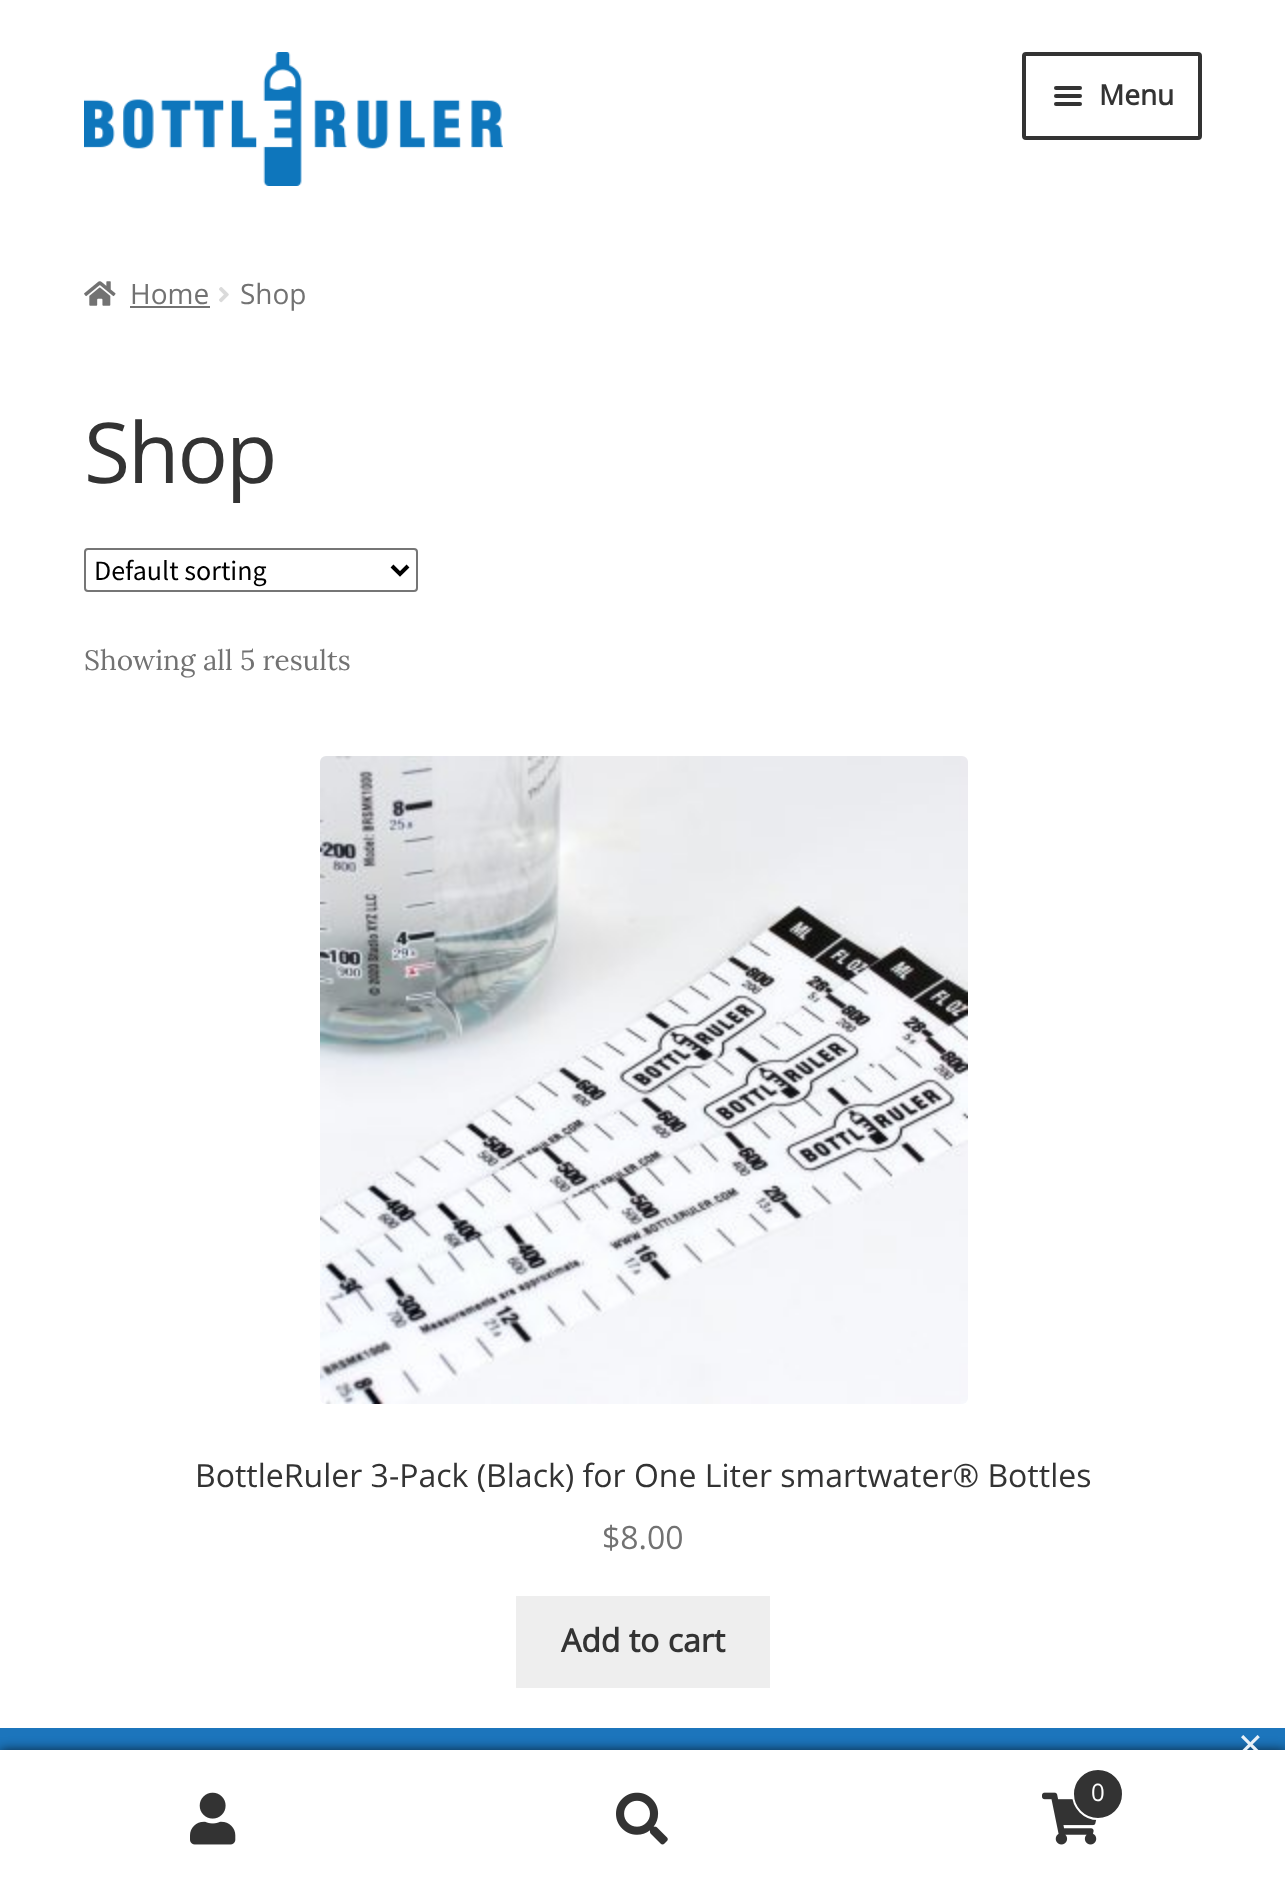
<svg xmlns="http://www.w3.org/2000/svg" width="1285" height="1888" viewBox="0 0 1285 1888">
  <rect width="100%" height="100%" fill="rgb(255,255,255)"/>
  <image x="84" y="52" width="419" height="134" href="pic1.png"/>
  <rect x="1024" y="54" width="176" height="84" rx="2" fill="none" stroke="rgb(51,51,51)" stroke-width="4"/>
  <rect x="1054" y="86" width="28" height="4" rx="2" fill="rgb(51,51,51)"/>
  <rect x="1054" y="94" width="28" height="4" rx="2" fill="rgb(51,51,51)"/>
  <text x="1099" y="105" font-family="Open Sans" font-size="28" font-weight="bold" fill="rgb(51,51,51)">Menu</text>
  <rect x="1054" y="102" width="28" height="4" rx="2" fill="rgb(51,51,51)"/>
  <image x="84" y="281" width="32" height="25" href="pic2.png"/>
  <text x="130" y="304" font-family="Open Sans" font-size="28" fill="rgb(114,114,114)">Home</text>
  <rect x="130" y="306" width="80" height="2" fill="rgb(114,114,114)"/>
  <image x="219" y="287" width="10" height="16" href="pic3.png"/>
  <text x="240" y="304" font-family="Open Sans" font-size="28" fill="rgb(114,114,114)">Shop</text>
  <text x="84" y="483" font-family="Open Sans" font-size="84" letter-spacing="-2" fill="rgb(51,51,51)">Shop</text>
  <rect x="85" y="549" width="332" height="42" rx="3" fill="none" stroke="rgb(118,118,118)" stroke-width="2"/>
  <path d="M392 566L400 574L408 566" fill="none" stroke="rgb(0,0,0)" stroke-width="4"/>
  <text x="94" y="580" font-family="Source Sans Pro" font-size="28" fill="rgb(0,0,0)">Default sorting</text>
  <text x="84" y="670" font-family="Lora" font-size="28" fill="rgb(114,114,114)">Showing all 5 results</text>
  <image x="320" y="756" width="648" height="648" href="pic4.png"/>
  <text x="195" y="1487" font-family="Open Sans" font-size="32" fill="rgb(51,51,51)">BottleRuler 3-Pack (Black) for One Liter smartwater® Bottles</text>
  <text x="602" y="1549" font-family="Open Sans" font-size="32" fill="rgb(114,114,114)">$8.00</text>
  <rect x="516" y="1596" width="254" height="92" fill="rgb(238,238,238)"/>
  <text x="561" y="1652" font-family="Open Sans" font-size="32" font-weight="bold" fill="rgb(51,51,51)">Add to cart</text>
  <rect x="0" y="1728" width="1285" height="22" fill="rgb(28,117,188)"/>
  <rect x="0" y="1750" width="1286" height="138" fill="rgba(0,0,0,0.7)" filter="blur(6px)"/>
  <text x="1237" y="1756" font-family="DejaVu Sans" font-size="32" fill="rgb(232,241,248)">✕</text>
  <rect x="0" y="1750" width="1285" height="2" fill="rgb(255,255,255)"/>
  <rect x="0" y="1752" width="1285" height="136" fill="rgb(255,255,255)"/>
  <image x="190" y="1792" width="46" height="53" href="pic5.png"/>
  <image x="616" y="1792" width="52" height="53" href="pic6.png"/>
  <image x="1042" y="1792" width="55" height="53" href="pic7.png"/>
  <circle cx="1098" cy="1794" r="25" fill="rgb(51,51,51)" stroke="rgb(255,255,255)" stroke-width="2"/>
  <text x="1091" y="1801" font-family="Open Sans" font-size="24" fill="rgb(255,255,255)">0</text>
</svg>
